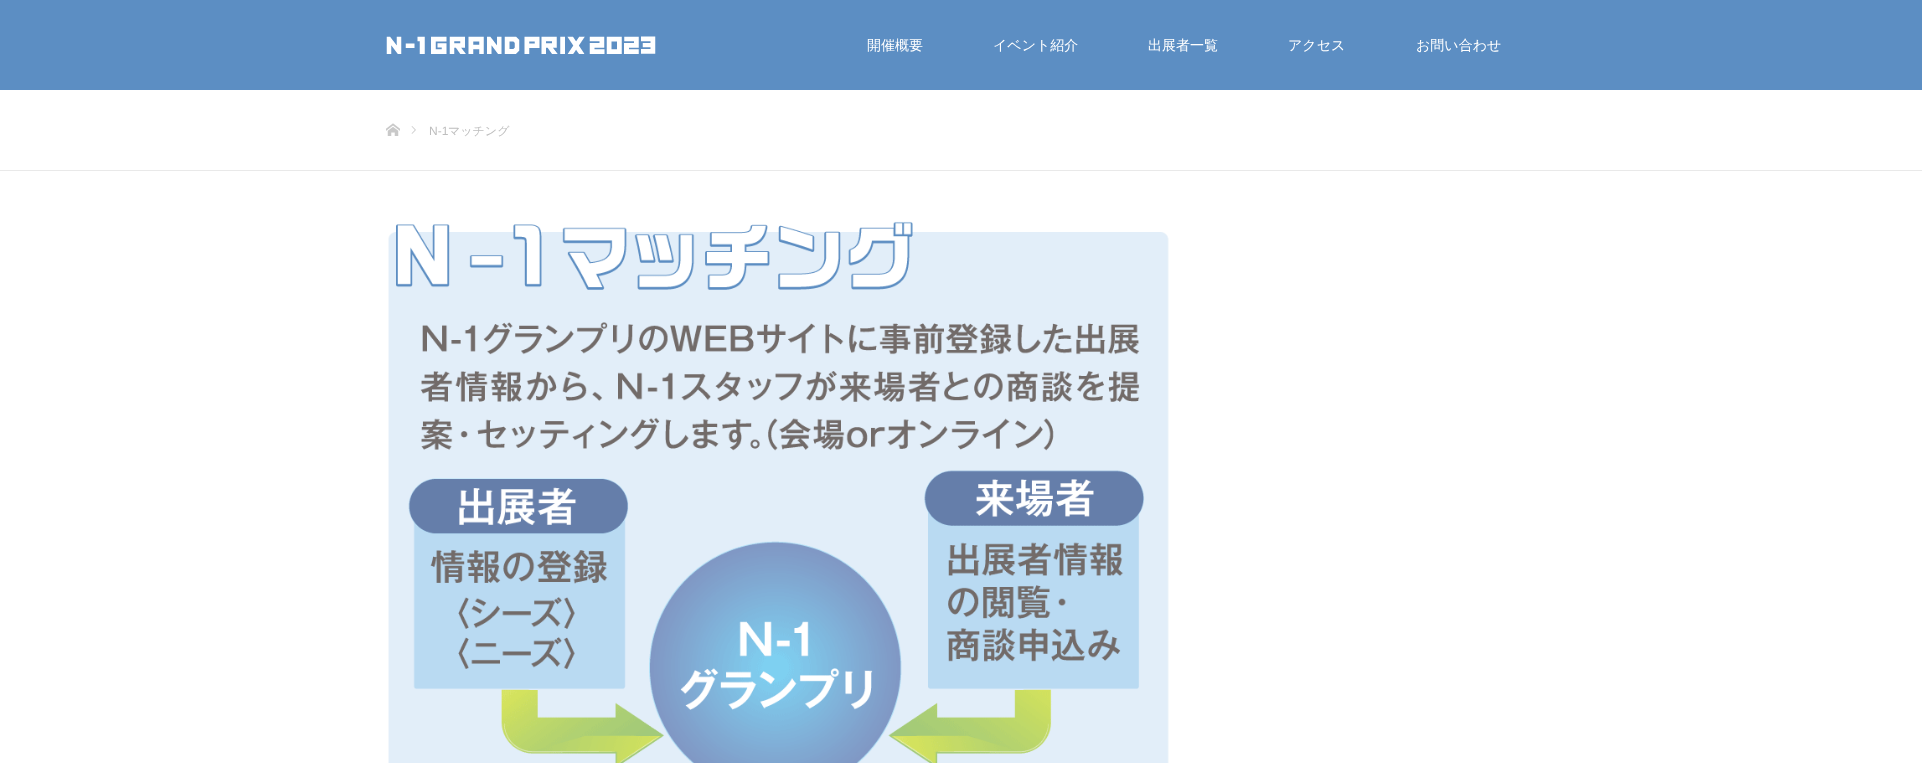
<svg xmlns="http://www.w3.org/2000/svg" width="1922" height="763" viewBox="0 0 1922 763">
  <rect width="100%" height="100%" fill="rgb(255,255,255)"/>
  <rect x="0" y="0" width="1922" height="90" fill="rgb(92,142,195)"/>
  <image x="386" y="36" width="270" height="18" href="pic1.png"/>
  <g font-family="WenQuanYi Zen Hei" font-size="14" font-weight="500" fill="rgb(255,255,255)">
    <text x="867" y="50">開催概要</text>
    <text x="993" y="50">イベント紹介</text>
    <text x="1148" y="50">出展者一覧</text>
    <text x="1288" y="50">アクセス</text>
    <text x="1416" y="50">お問い合わせ</text>
  </g>
  <rect x="0" y="170" width="1922" height="1" fill="rgb(233,233,233)"/>
  <image x="386" y="123" width="14" height="13" href="pic2.png"/>
  <image x="411" y="126" width="5" height="8" href="pic3.png"/>
  <text x="429" y="135" font-family="Liberation Sans" font-size="12" fill="rgb(190,190,190)">N-1</text>
  <text x="448" y="135" font-family="WenQuanYi Zen Hei" font-size="12" font-weight="500" fill="rgb(190,190,190)">マッチング</text>
  <image x="388" y="221" width="781" height="542" href="pic4.png"/>
</svg>
